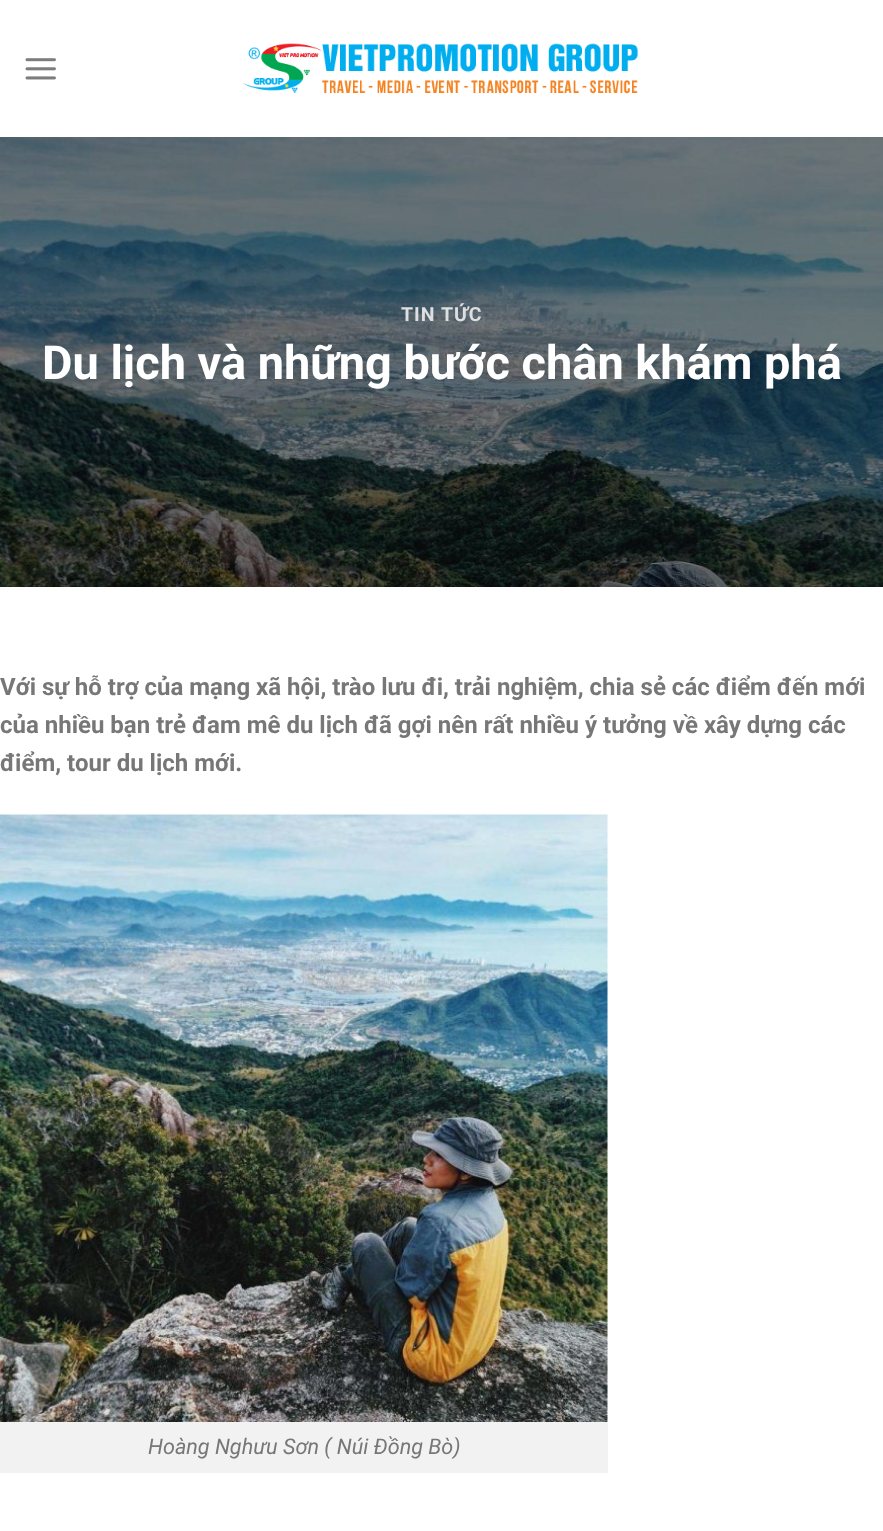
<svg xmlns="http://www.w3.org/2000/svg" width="883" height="1531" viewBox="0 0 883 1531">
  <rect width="100%" height="100%" fill="rgb(255,255,255)"/>
  <image x="0" y="136" width="883" height="451" href="pic3.png"/>
  <rect x="0" y="136" width="883" height="1" fill="rgba(255,255,255,0.9)"/>
  <image x="25" y="58" width="31" height="22" href="pic1.png"/>
  <image x="243" y="43" width="396" height="51" href="pic2.png"/>
  <rect x="23" y="137" width="367" height="2" fill="rgba(119,119,119,0.1)"/>
  <rect x="0" y="136" width="883" height="1" fill="rgba(255,255,255,0.9)"/>
  <text x="401" y="321" font-family="Roboto" font-size="19.5" font-weight="bold" letter-spacing="1" fill="rgb(221,223,225)">TIN TỨC</text>
  <text x="42" y="379" font-family="Roboto" font-size="46.9" font-weight="bold" fill="rgb(255,255,255)">Du lịch và những bước chân khám phá</text>
  <g font-family="Roboto" font-size="24" font-weight="bold" fill="rgb(119,119,119)">
    <text>
      <tspan x="0" y="695">Với sự hỗ trợ của mạng xã hội, trào lưu đi, trải nghiệm, chia sẻ các điểm đến mới</tspan>
      <tspan x="0" y="733">của nhiều bạn trẻ đam mê du lịch đã gợi nên rất nhiều ý tưởng về xây dựng các</tspan>
      <tspan x="0" y="771">điểm, tour du lịch mới.</tspan>
    </text>
  </g>
  <image x="0" y="814" width="608" height="608" href="pic4.png"/>
  <rect x="0" y="1422" width="608" height="51" fill="rgb(242,242,242)"/>
  <text x="148" y="1454" font-family="Roboto" font-size="21.6" font-style="italic" fill="rgb(119,119,119)">Hoàng Nghưu Sơn ( Núi Đồng Bò)</text>
</svg>
